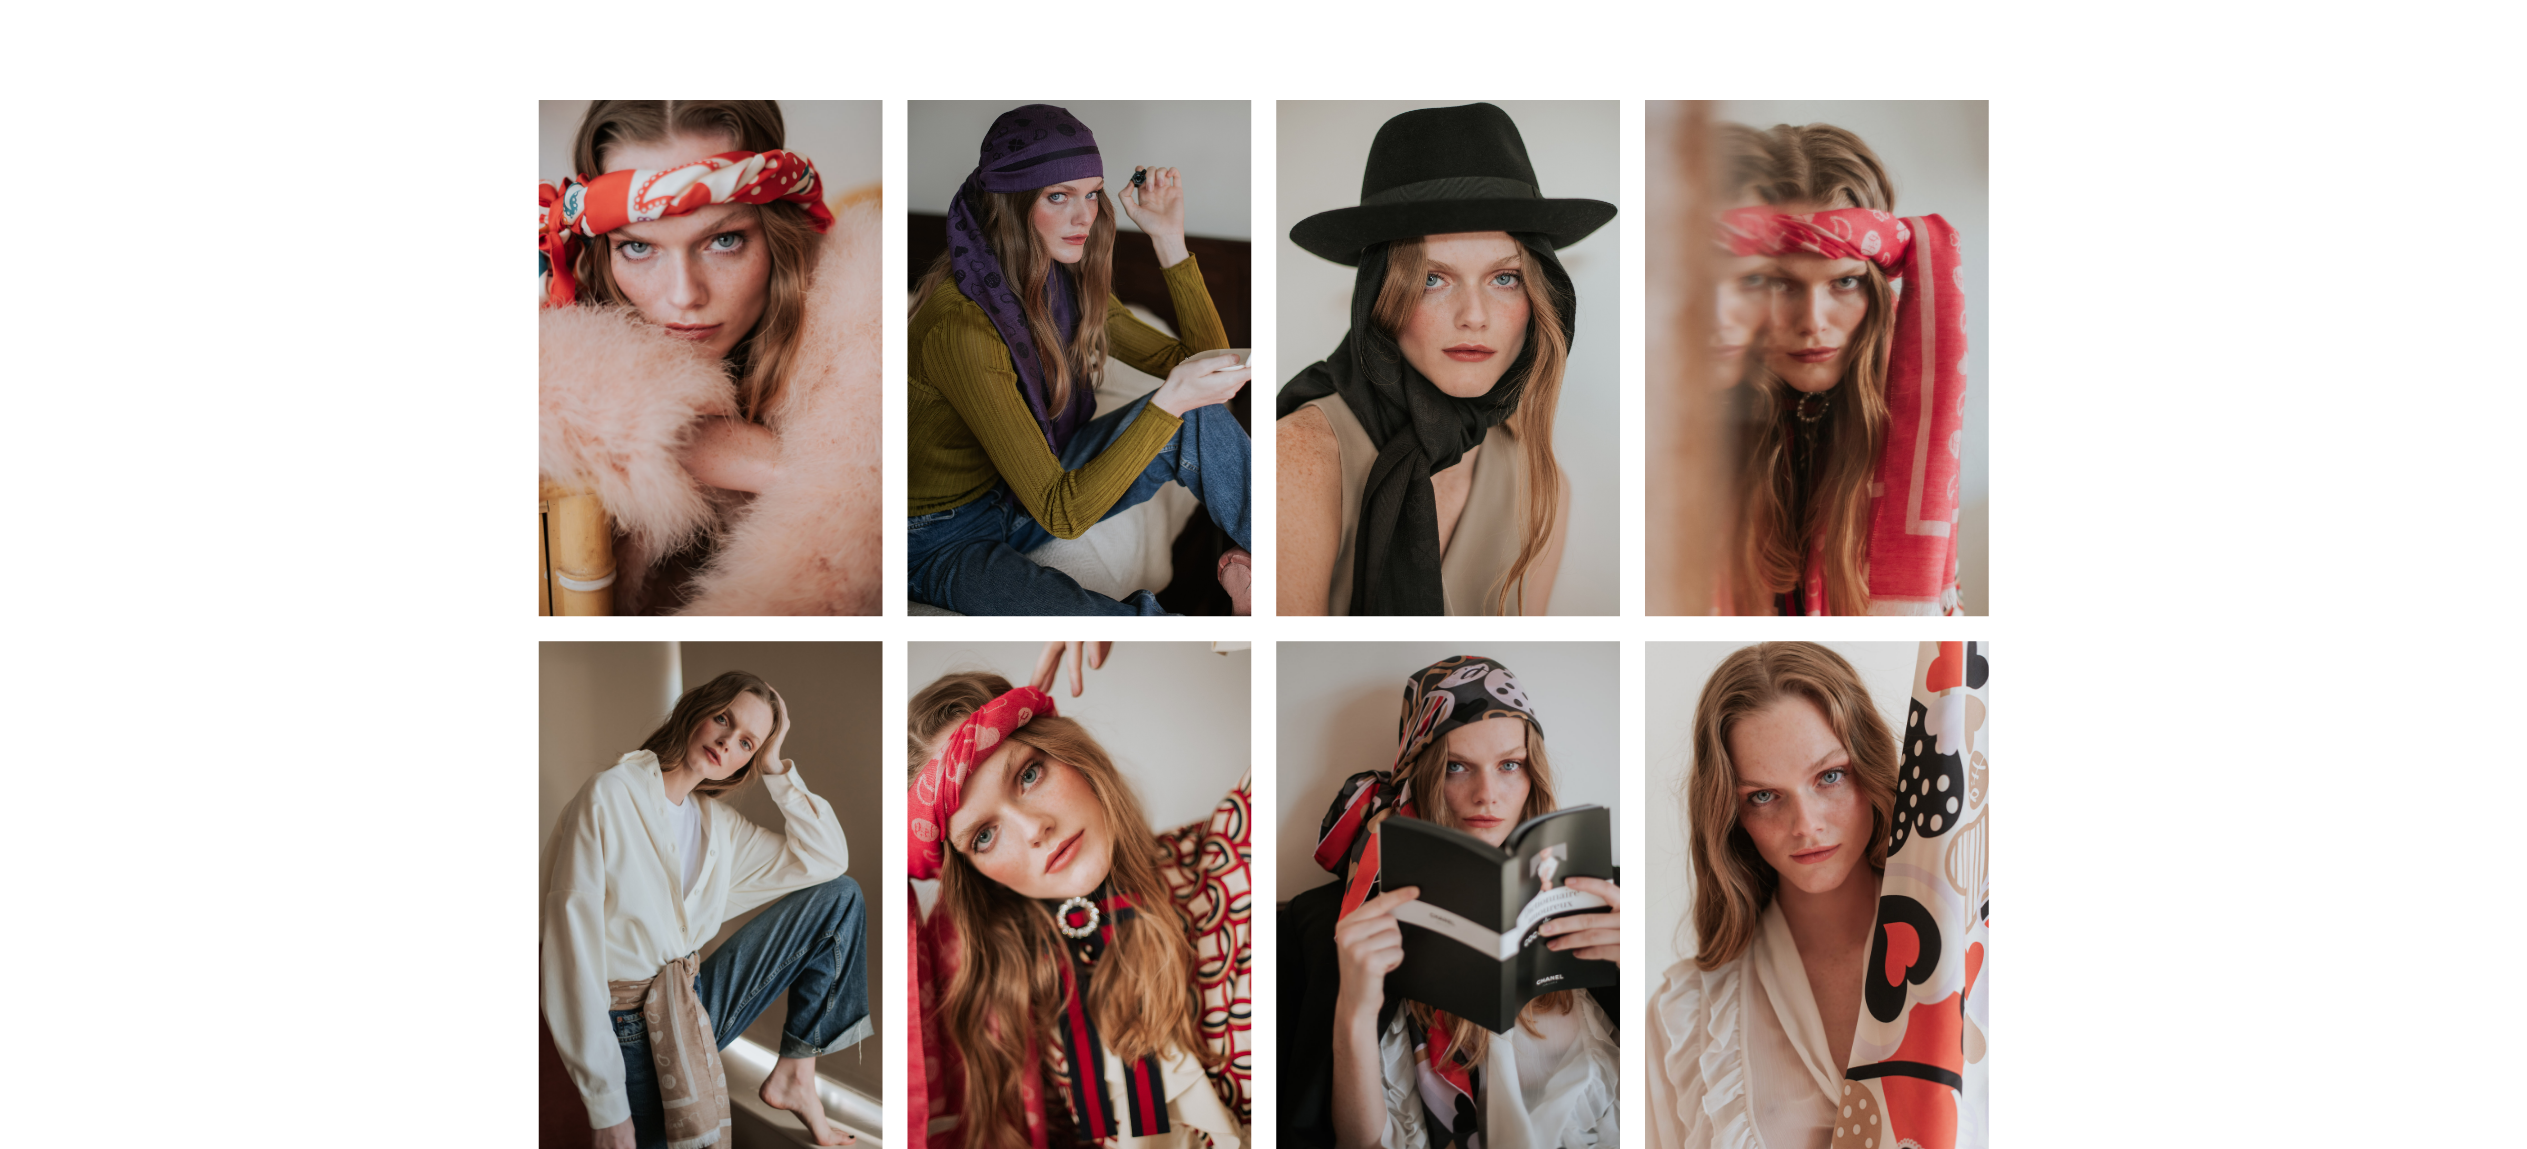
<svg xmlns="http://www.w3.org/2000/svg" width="2527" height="1149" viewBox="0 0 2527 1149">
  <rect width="100%" height="100%" fill="rgb(255,255,255)"/>
  <image x="538" y="100" width="345" height="517" href="pic1.png"/>
  <image x="907" y="100" width="345" height="517" href="pic2.png"/>
  <image x="1276" y="100" width="344" height="517" href="pic3.png"/>
  <image x="1645" y="100" width="344" height="517" href="pic4.png"/>
  <image x="538" y="641" width="345" height="508" href="pic5.png"/>
  <image x="907" y="641" width="345" height="508" href="pic6.png"/>
  <image x="1276" y="641" width="344" height="508" href="pic7.png"/>
  <image x="1645" y="641" width="344" height="508" href="pic8.png"/>
</svg>
